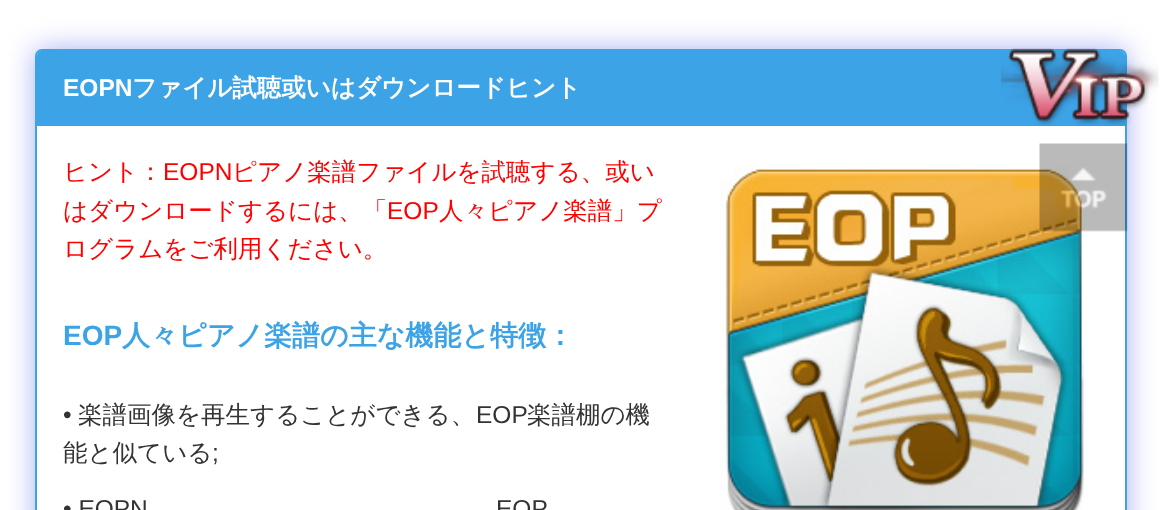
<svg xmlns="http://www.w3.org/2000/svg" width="1162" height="510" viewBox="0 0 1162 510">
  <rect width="100%" height="100%" fill="rgb(255,255,255)"/>
  <rect x="35" y="49" width="1092" height="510" rx="7" fill="rgb(167,176,243)" filter="blur(14px)"/>
  <rect x="36" y="50" width="1090" height="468" rx="6" fill="rgb(255,255,255)" stroke="rgb(61,163,231)" stroke-width="2"/>
  <path d="M42 51H1120C1123 51 1125 53 1125 56V126H37V56C37 53 39 51 42 51Z" fill="rgb(61,163,231)"/>
  <text x="63" y="96" font-family="Liberation Sans" font-size="24.5" font-weight="bold" fill="rgb(255,255,255)">EOPN</text>
  <text x="132" y="96" font-family="WenQuanYi Zen Hei" font-size="24.5" font-weight="bold" fill="rgb(255,255,255)">ファイル試聴或いはダウンロードヒント</text>
  <text x="63" y="180" font-family="WenQuanYi Zen Hei" font-size="24.5" font-weight="500" fill="rgb(255,0,0)">ヒント：</text>
  <text x="163" y="180" font-family="Liberation Sans" font-size="24.5" fill="rgb(255,0,0)">EOPN</text>
  <g font-family="WenQuanYi Zen Hei" font-size="24.5" font-weight="500" fill="rgb(255,0,0)">
    <text x="232" y="180">ピアノ楽譜ファイルを試聴する、或い</text>
    <text x="63" y="219">はダウンロードするには、「</text>
  </g>
  <text x="387" y="219" font-family="Liberation Sans" font-size="24.5" fill="rgb(255,0,0)">EOP</text>
  <g font-family="WenQuanYi Zen Hei" font-size="24.5" font-weight="500" fill="rgb(255,0,0)">
    <text x="439" y="219">人々ピアノ楽譜」プ</text>
    <text x="63" y="257">ログラムをご利用ください。</text>
  </g>
  <image x="719" y="166" width="365" height="344" href="pic1.png"/>
  <text x="63" y="345" font-family="Liberation Sans" font-size="28" font-weight="bold" fill="rgb(61,163,231)">EOP</text>
  <text x="122" y="345" font-family="WenQuanYi Zen Hei" font-size="28" font-weight="bold" fill="rgb(61,163,231)">人々ピアノ楽譜の主な機能と特徴：</text>
  <text x="63" y="423" font-family="Liberation Sans" font-size="24.5" fill="rgb(51,51,51)">•</text>
  <text x="78" y="423" font-family="WenQuanYi Zen Hei" font-size="24.5" font-weight="500" fill="rgb(51,51,51)">楽譜画像を再生することができる、</text>
  <text x="476" y="423" font-family="Liberation Sans" font-size="24.5" fill="rgb(51,51,51)">EOP</text>
  <g font-family="WenQuanYi Zen Hei" font-size="24.5" font-weight="500" fill="rgb(51,51,51)">
    <text x="527" y="423">楽譜棚の機</text>
    <text x="63" y="461">能と似ている</text>
  </g>
  <g font-family="Liberation Sans" font-size="24.5" fill="rgb(51,51,51)">
    <text x="212" y="461">;</text>
    <text x="63" y="517">• EOPN</text>
    <text x="496" y="517">EOP</text>
  </g>
  <image x="1001" y="48" width="158" height="78" href="pic2.png"/>
  <image x="1039" y="143" width="89" height="89" href="pic3.png"/>
</svg>
